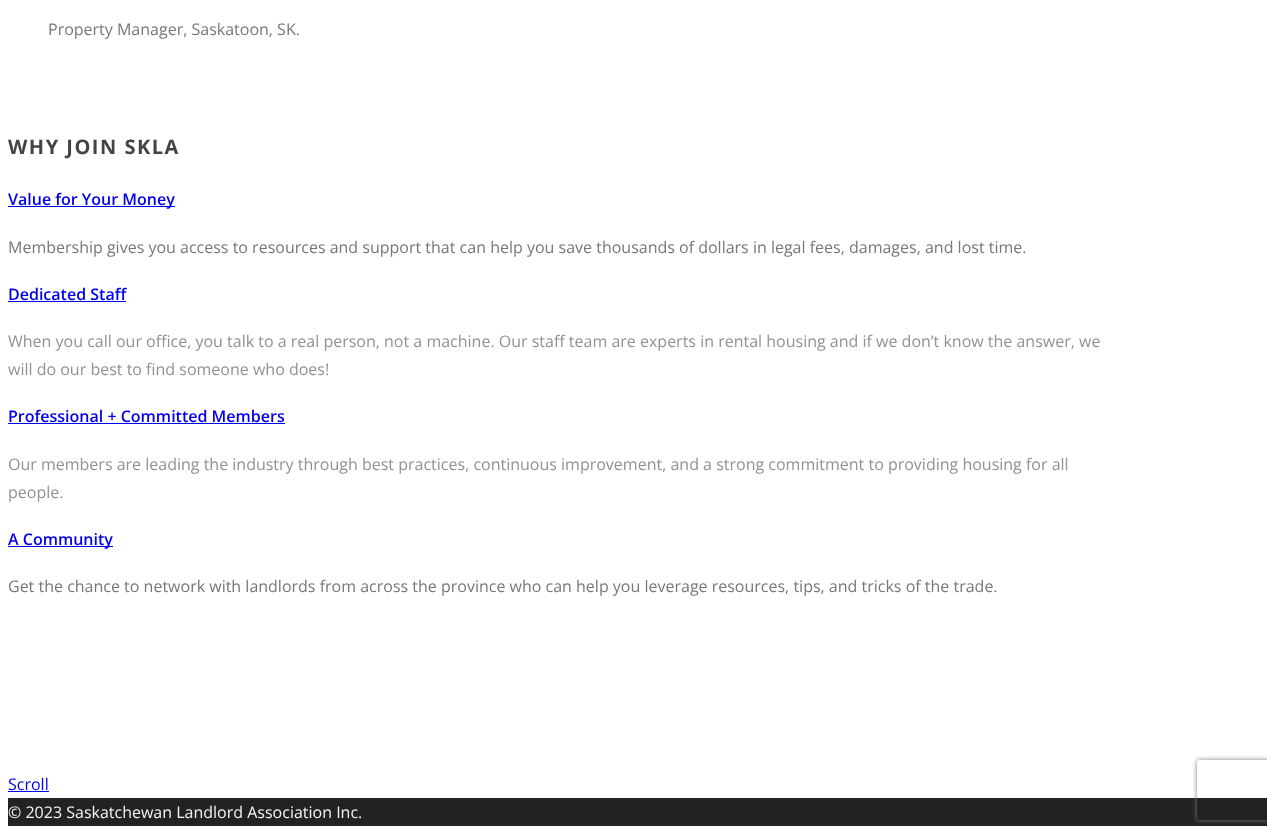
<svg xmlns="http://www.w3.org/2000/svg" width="1267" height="834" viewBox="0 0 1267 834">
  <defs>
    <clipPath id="clip1"><path d="M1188 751H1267V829H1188ZM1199 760H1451C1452 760 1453 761 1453 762V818C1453 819 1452 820 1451 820H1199C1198 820 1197 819 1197 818V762C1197 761 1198 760 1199 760Z" clip-rule="evenodd"/></clipPath>
  </defs>
  <rect width="100%" height="100%" fill="rgb(255,255,255)"/>
  <text x="48" y="35" font-family="Open Sans" font-size="16" fill="rgb(119,119,119)">Property Manager, Saskatoon, SK.</text>
  <text x="8" y="154" font-family="Open Sans" font-size="20" font-weight="bold" letter-spacing="1.5" fill="rgb(68,68,68)">WHY JOIN SKLA</text>
  <rect x="8" y="206" width="167" height="1" fill="rgb(0,0,238)"/>
  <text x="8" y="205" font-family="Open Sans" font-size="16" font-weight="600" fill="rgb(0,0,238)">Value for Your Money</text>
  <text x="8" y="253" font-family="Open Sans" font-size="16" fill="rgb(119,119,119)">Membership gives you access to resources and support that can help you save thousands of dollars in legal fees, damages, and lost time.</text>
  <text x="8" y="300" font-family="Open Sans" font-size="16" font-weight="600" fill="rgb(0,0,238)">Dedicated Staff</text>
  <rect x="8" y="301" width="118" height="1" fill="rgb(0,0,238)"/>
  <g font-family="Open Sans" font-size="16" fill="rgb(143,145,150)">
    <text>
      <tspan x="8" y="347">When you call our office, you talk to a real person, not a machine. Our staff team are experts in rental housing and if we don’t know the answer, we</tspan>
      <tspan x="8" y="375">will do our best to find someone who does!</tspan>
    </text>
  </g>
  <text x="8" y="422" font-family="Open Sans" font-size="16" font-weight="600" fill="rgb(0,0,238)">Professional + Committed Members</text>
  <rect x="8" y="423" width="277" height="1" fill="rgb(0,0,238)"/>
  <g font-family="Open Sans" font-size="16" fill="rgb(143,145,150)">
    <text>
      <tspan x="8" y="470">Our members are leading the industry through best practices, continuous improvement, and a strong commitment to providing housing for all</tspan>
      <tspan x="8" y="498">people.</tspan>
    </text>
  </g>
  <rect x="8" y="546" width="105" height="1" fill="rgb(0,0,238)"/>
  <text x="8" y="545" font-family="Open Sans" font-size="16" font-weight="600" fill="rgb(0,0,238)">A Community</text>
  <text x="8" y="592" font-family="Open Sans" font-size="16" fill="rgb(119,119,119)">Get the chance to network with landlords from across the province who can help you leverage resources, tips, and tricks of the trade.</text>
  <text x="8" y="790" font-family="Open Sans" font-size="16" fill="rgb(0,0,238)">Scroll</text>
  <rect x="8" y="791" width="41" height="1" fill="rgb(0,0,238)"/>
  <rect x="8" y="798" width="1259" height="28" fill="rgb(34,34,34)"/>
  <text x="8" y="818" font-family="Open Sans" font-size="16" fill="rgb(244,244,244)">© 2023 Saskatchewan Landlord Association Inc.</text>
  <g clip-path="url(#clip1)">
    <rect x="1197" y="760" width="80" height="60" rx="2" fill="rgb(128,128,128)" filter="blur(2.5px)"/>
  </g>
</svg>
